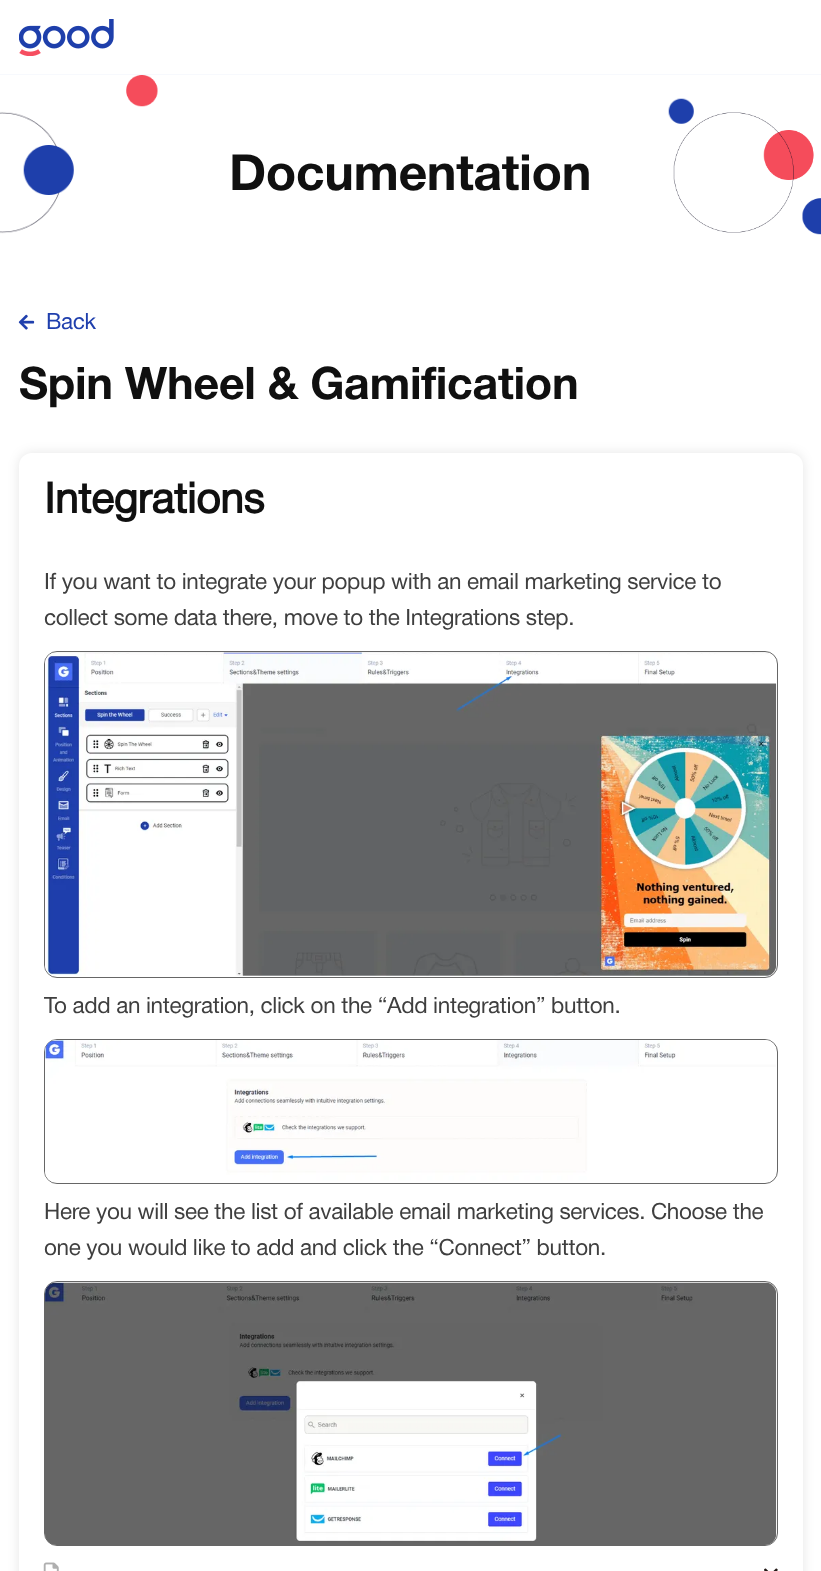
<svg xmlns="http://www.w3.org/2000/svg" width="821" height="1571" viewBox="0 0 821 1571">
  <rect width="100%" height="100%" fill="rgb(255,255,255)"/>
  <rect x="0" y="74" width="821" height="1" fill="rgb(247,249,253)"/>
  <image x="19" y="19" width="95" height="37" href="pic1.png"/>
  <image x="0" y="75" width="821" height="160" href="pic2.png"/>
  <text x="229" y="190" font-family="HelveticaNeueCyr" font-size="50" font-weight="bold" letter-spacing="-0.35" fill="rgb(16,16,16)">Documentation</text>
  <image x="18" y="314" width="17" height="16" href="pic3.png"/>
  <text x="46" y="329" font-family="HelveticaNeueCyr" font-size="22.5" letter-spacing="-0.35" fill="rgb(31,63,173)">Back</text>
  <text x="19" y="399" font-family="HelveticaNeueCyr" font-size="45" font-weight="bold" letter-spacing="-0.35" fill="rgb(16,16,16)">Spin Wheel &amp; Gamification</text>
  <rect x="19" y="453" width="784" height="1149" rx="13" fill="rgba(0,0,0,0.1)" filter="blur(6px)"/>
  <rect x="19" y="453" width="784" height="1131" rx="13" fill="rgb(255,255,255)"/>
  <text x="44" y="513" font-family="'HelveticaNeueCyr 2'" font-size="42.5" font-weight="bold" letter-spacing="-0.35" fill="rgb(16,16,16)">Integrations</text>
  <g font-family="HelveticaNeueCyr" font-size="22.5" letter-spacing="-0.35" fill="rgb(63,63,63)">
    <text>
      <tspan x="44" y="589">If you want to integrate your popup with an email marketing service to</tspan>
      <tspan x="44" y="625">collect some data there, move to the Integrations step.</tspan>
    </text>
  </g>
  <rect x="44.5" y="651.5" width="733" height="326" rx="12.5" fill="none" stroke="rgb(102,102,102)"/>
  <image x="45" y="652" width="732" height="324" href="pic4.png"/>
  <text x="44" y="1013" font-family="HelveticaNeueCyr" font-size="22.5" letter-spacing="-0.35" fill="rgb(63,63,63)">To add an integration, click on the “Add integration” button.</text>
  <rect x="44.5" y="1039.5" width="733" height="144" rx="12.5" fill="none" stroke="rgb(102,102,102)"/>
  <image x="45" y="1040" width="731" height="143" href="pic5.png"/>
  <g font-family="HelveticaNeueCyr" font-size="22.5" letter-spacing="-0.35" fill="rgb(63,63,63)">
    <text>
      <tspan x="44" y="1219">Here you will see the list of available email marketing services. Choose the</tspan>
      <tspan x="44" y="1255">one you would like to add and click the “Connect” button.</tspan>
    </text>
  </g>
  <rect x="44.5" y="1281.5" width="733" height="264" rx="12.5" fill="none" stroke="rgb(102,102,102)"/>
  <image x="45" y="1282" width="732" height="263" href="pic6.png"/>
  <image x="43" y="1562" width="16" height="9" href="pic7.png"/>
  <image x="764" y="1568" width="14" height="3" href="pic8.png"/>
</svg>
